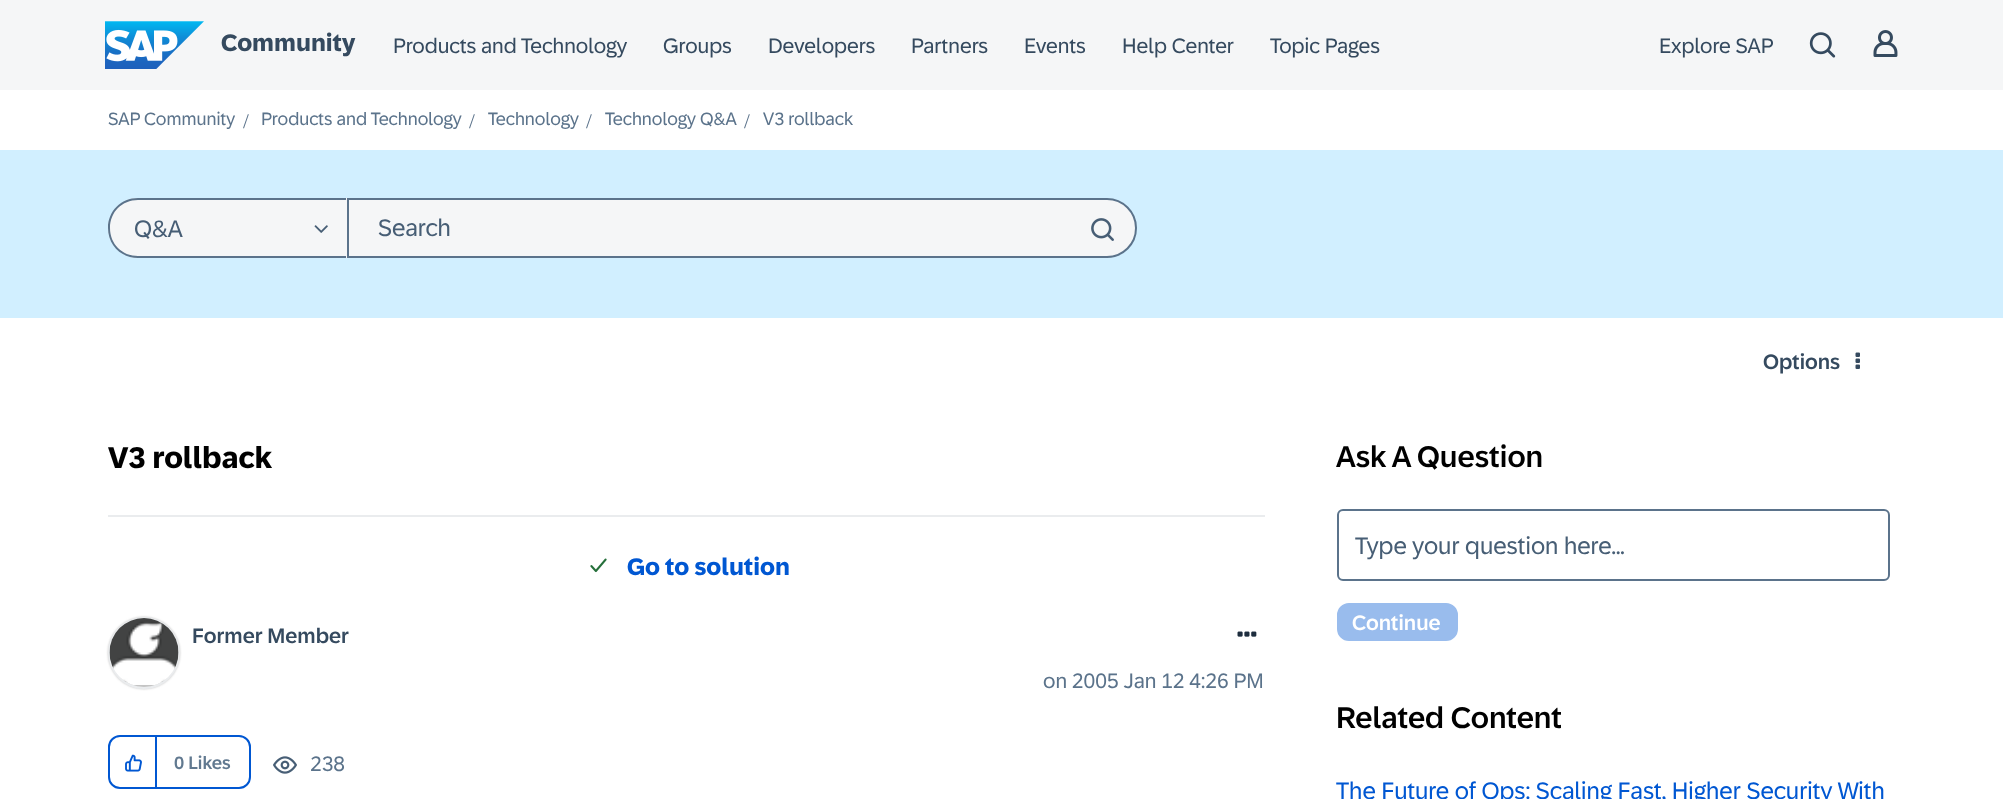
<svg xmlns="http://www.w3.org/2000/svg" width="2003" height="799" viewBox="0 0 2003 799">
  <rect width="100%" height="100%" fill="rgb(255,255,255)"/>
  <rect x="0" y="0" width="2003" height="90" fill="rgb(245,246,247)"/>
  <image x="105" y="21" width="99" height="48" href="pic1.png"/>
  <text x="221" y="51" font-family="'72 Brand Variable'" font-size="24" font-weight="bold" fill="rgb(53,74,95)">Community</text>
  <g font-family="'72 Brand Variable'" font-size="21" fill="rgb(53,74,95)">
    <text x="393" y="53">Products and Technology</text>
    <text x="663" y="53">Groups</text>
    <text x="768" y="53">Developers</text>
    <text x="911" y="53">Partners</text>
    <text x="1024" y="53">Events</text>
    <text x="1122" y="53">Help Center</text>
    <text x="1270" y="53">Topic Pages</text>
    <text x="1659" y="53">Explore SAP</text>
  </g>
  <image x="1809" y="32" width="27" height="26" href="pic2.png"/>
  <image x="1873" y="30" width="25" height="27" href="pic3.png"/>
  <text x="108" y="125" font-family="'72 Brand Variable'" font-size="18" fill="rgb(91,115,139)">SAP Community</text>
  <text x="243" y="128" font-family="Liberation Serif" font-size="21" fill="rgb(91,115,139)">/</text>
  <text x="261" y="125" font-family="'72 Brand Variable'" font-size="18" fill="rgb(91,115,139)">Products and Technology</text>
  <text x="469" y="128" font-family="Liberation Serif" font-size="21" fill="rgb(91,115,139)">/</text>
  <text x="488" y="125" font-family="'72 Brand Variable'" font-size="18" fill="rgb(91,115,139)">Technology</text>
  <text x="586" y="128" font-family="Liberation Serif" font-size="21" fill="rgb(91,115,139)">/</text>
  <text x="605" y="125" font-family="'72 Brand Variable'" font-size="18" fill="rgb(91,115,139)">Technology Q&amp;A</text>
  <text x="744" y="128" font-family="Liberation Serif" font-size="21" fill="rgb(91,115,139)">/</text>
  <text x="763" y="125" font-family="'72 Brand Variable'" font-size="18" fill="rgb(91,115,139)">V3 rollback</text>
  <rect x="0" y="150" width="2003" height="168" fill="rgb(209,239,255)"/>
  <path d="M138 198H347V258H138C121.5 258 108 244.5 108 228C108 211.5 121.5 198 138 198Z" fill="rgb(245,246,247)"/>
  <path d="M138 198H346V258H138C121 258 108 245 108 228C108 211 121 198 138 198ZM138 200H346V256H138C122 256 110 244 110 228C110 212 122 200 138 200Z" fill="rgb(91,115,139)" fill-rule="evenodd"/>
  <text x="134" y="237" font-family="'72 Brand Variable'" font-size="24" fill="rgb(71,94,117)">Q&amp;A</text>
  <image x="314" y="225" width="14" height="8" href="pic4.png"/>
  <path d="M348 199H1107C1123 199 1136 212 1136 228C1136 244 1123 257 1107 257H348Z" fill="rgb(245,246,247)" stroke="rgb(91,115,139)" stroke-width="2"/>
  <text x="378" y="236" font-family="'72 Brand Variable'" font-size="24" fill="rgb(71,94,117)">Search</text>
  <image x="1091" y="218" width="23" height="23" href="pic5.png"/>
  <text x="1763" y="369" font-family="'72 Brand Variable'" font-size="21" font-weight="500" fill="rgb(53,74,95)">Options</text>
  <image x="1855" y="352" width="5" height="17" href="pic6.png"/>
  <rect x="108" y="515" width="1157" height="2" fill="rgb(234,236,238)"/>
  <text x="108" y="468" font-family="'72 Brand Variable'" font-size="30" font-weight="bold" fill="rgb(0,0,0)">V3 rollback</text>
  <image x="590" y="558" width="17" height="15" href="pic7.png"/>
  <text x="627" y="575" font-family="'72 Brand Variable'" font-size="24" font-weight="bold" fill="rgb(0,87,210)">Go to solution</text>
  <rect x="108" y="617" width="72" height="72" rx="36" fill="rgb(196,196,196)" filter="blur(1px)"/>
  <circle cx="144" cy="653" r="35" fill="none" stroke="rgb(234,236,238)" stroke-width="2"/>
  <image x="109" y="618" width="70" height="67" href="pic8.png"/>
  <text x="192" y="643" font-family="'72 Brand Variable'" font-size="21" font-weight="500" fill="rgb(53,74,95)">Former Member</text>
  <image x="1237" y="631" width="20" height="6" href="pic9.png"/>
  <text x="1043" y="688" font-family="'72 Brand Variable'" font-size="21" fill="rgb(91,115,139)">on 2005 Jan 12 4:26 PM</text>
  <rect x="109" y="736" width="141" height="52" rx="11" fill="none" stroke="rgb(0,87,210)" stroke-width="2"/>
  <rect x="155" y="737" width="2" height="52" fill="rgb(0,87,210)"/>
  <image x="125" y="754" width="17" height="18" href="pic10.png"/>
  <text x="174" y="769" font-family="'72 Brand Variable'" font-size="18" font-weight="500" fill="rgb(97,121,144)">0 Likes</text>
  <image x="273" y="756" width="24" height="18" href="pic11.png"/>
  <text x="310" y="771" font-family="'72 Brand Variable'" font-size="21" fill="rgb(91,115,139)">238</text>
  <text x="1336" y="467" font-family="'72 Brand Variable'" font-size="30" font-weight="500" fill="rgb(0,0,0)">Ask A Question</text>
  <rect x="1338" y="510" width="551" height="70" rx="5" fill="none" stroke="rgb(91,115,139)" stroke-width="2"/>
  <text x="1355" y="554" font-family="'72 Brand Variable'" font-size="24" fill="rgb(71,94,117)">Type your question here...</text>
  <rect x="1338" y="604" width="119" height="36" rx="11" fill="rgb(153,188,237)" stroke="rgb(153,188,237)" stroke-width="2"/>
  <text x="1352" y="630" font-family="'72 Brand Variable'" font-size="21" font-weight="500" fill="rgb(255,255,255)">Continue</text>
  <text x="1336" y="728" font-family="'72 Brand Variable'" font-size="30" font-weight="500" fill="rgb(0,0,0)">Related Content</text>
  <text x="1336" y="799" font-family="'72 Brand Variable'" font-size="24" fill="rgb(0,87,210)">The Future of Ops: Scaling Fast, Higher Security With</text>
</svg>
